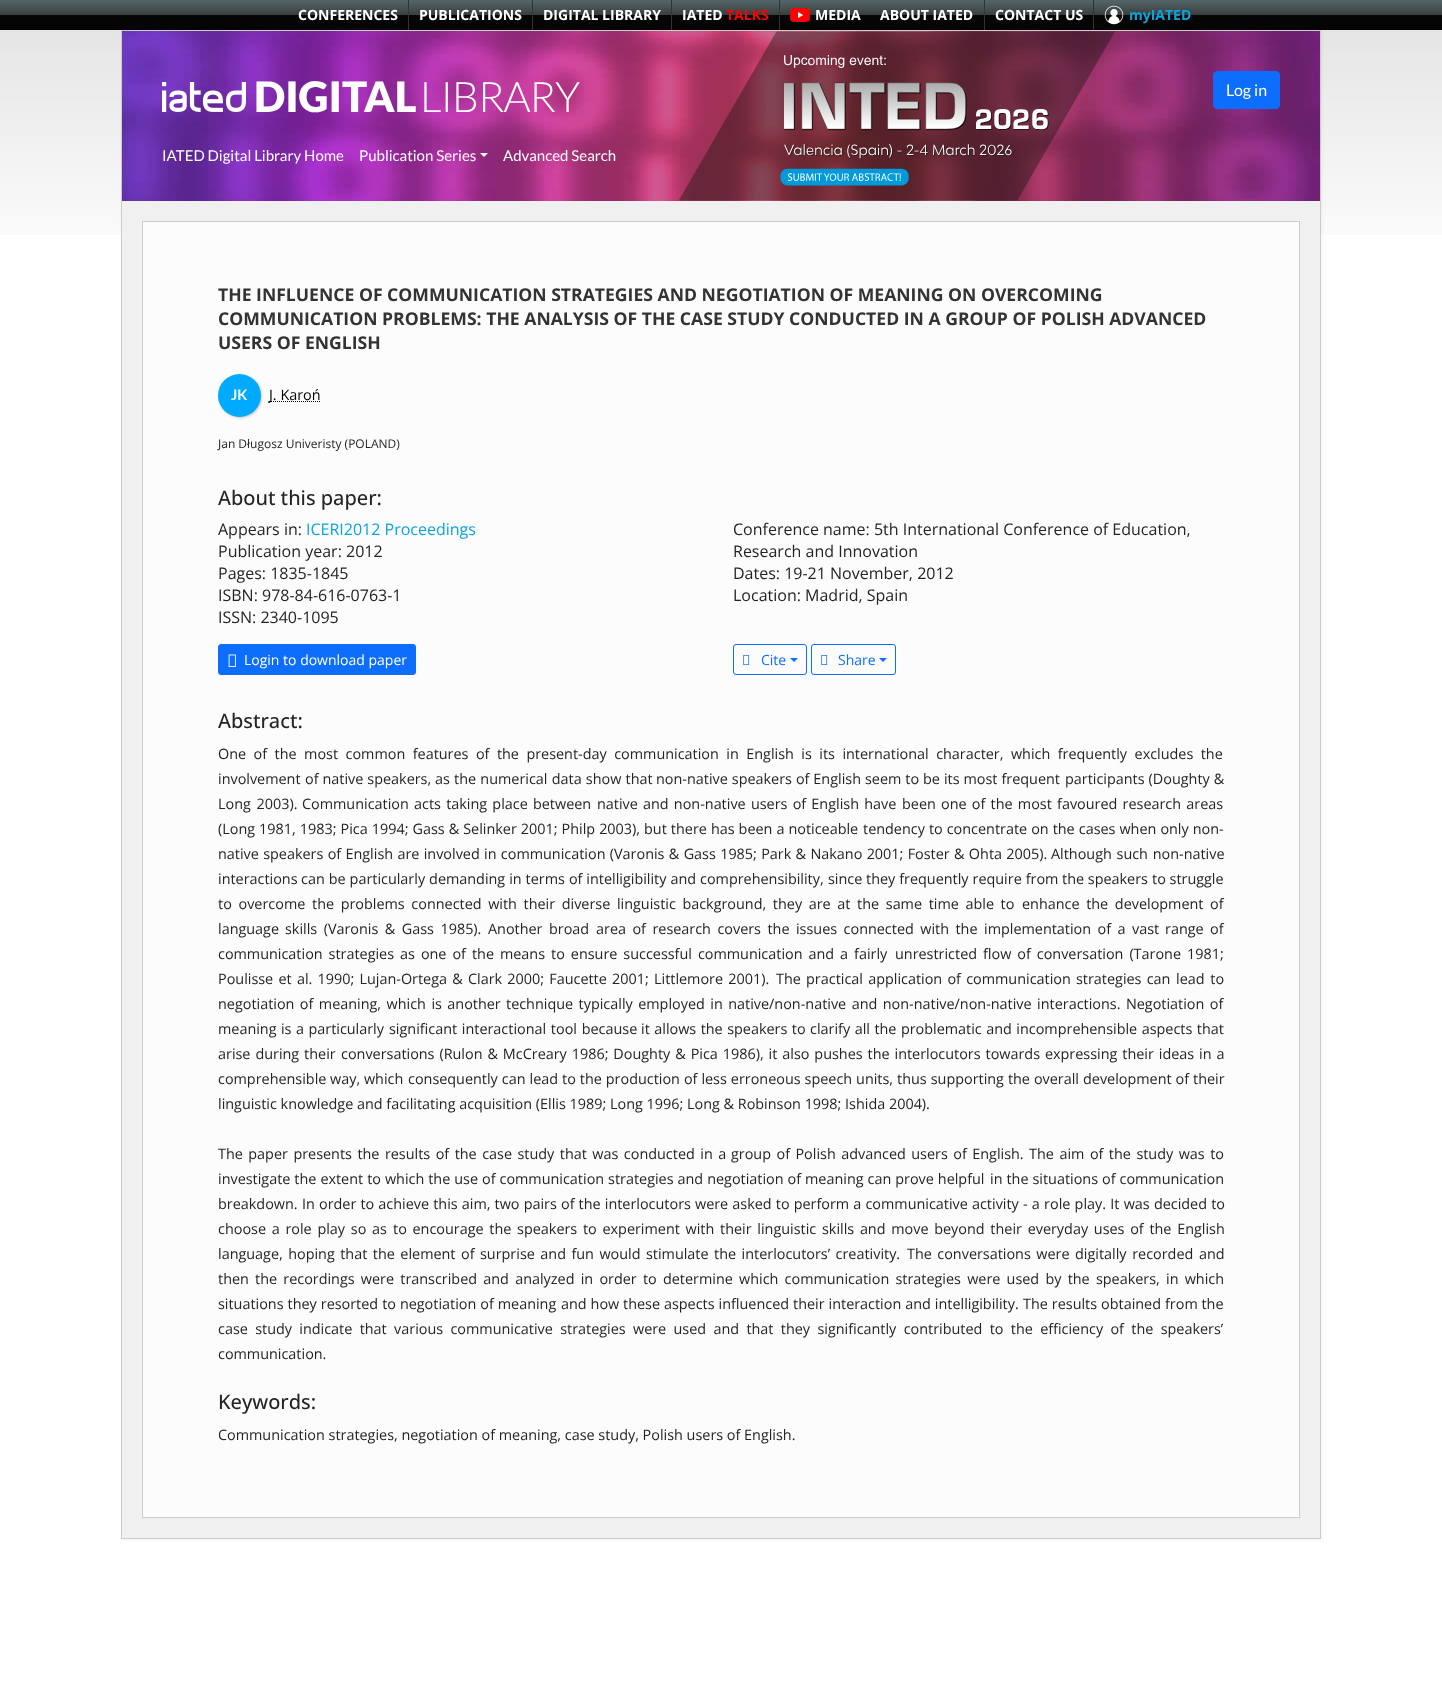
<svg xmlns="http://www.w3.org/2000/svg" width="1442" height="1707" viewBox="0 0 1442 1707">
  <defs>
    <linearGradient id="g1" gradientUnits="userSpaceOnUse" x1="721" y1="0" x2="721" y2="30"><stop offset="0" stop-color="rgb(84,102,106)"/><stop offset="0.5" stop-color="rgb(58,62,61)"/><stop offset="0.51" stop-color="rgb(5,7,5)"/><stop offset="1" stop-color="rgb(6,4,5)"/></linearGradient>
  </defs>
  <rect width="100%" height="100%" fill="rgb(255,255,255)"/>
  <image x="0" y="30" width="1442" height="205" href="pic1.png"/>
  <rect x="0" y="0" width="1442" height="30" fill="url(#g1)"/>
  <text x="298" y="20" font-family="Open Sans" font-size="14" font-weight="bold" fill="rgb(255,255,255)">CONFERENCES</text>
  <rect x="122" y="31" width="1200" height="1509" fill="rgba(0,0,0,0.05)" filter="blur(1.5px)"/>
  <rect x="408" y="0" width="1" height="30" fill="rgb(51,51,51)"/>
  <text x="419" y="20" font-family="Open Sans" font-size="14" font-weight="bold" fill="rgb(255,255,255)">PUBLICATIONS</text>
  <rect x="532" y="0" width="1" height="30" fill="rgb(51,51,51)"/>
  <text x="543" y="20" font-family="Open Sans" font-size="14" font-weight="bold" fill="rgb(255,255,255)">DIGITAL LIBRARY</text>
  <rect x="671" y="0" width="1" height="30" fill="rgb(51,51,51)"/>
  <text x="682" y="20" font-family="Open Sans" font-size="14" font-weight="bold" fill="rgb(255,255,255)">IATED</text>
  <text x="726" y="20" font-family="Open Sans" font-size="14" font-weight="bold" fill="rgb(255,0,0)">TALKS</text>
  <rect x="779" y="0" width="1" height="30" fill="rgb(51,51,51)"/>
  <image x="790" y="8" width="20" height="14" href="pic2.png"/>
  <g font-family="Open Sans" font-size="14" font-weight="bold" fill="rgb(255,255,255)">
    <text x="815" y="20">MEDIA</text>
    <text x="880" y="20">ABOUT IATED</text>
  </g>
  <rect x="984" y="0" width="1" height="30" fill="rgb(51,51,51)"/>
  <text x="995" y="20" font-family="Open Sans" font-size="14" font-weight="bold" fill="rgb(255,255,255)">CONTACT US</text>
  <rect x="1093" y="0" width="1" height="30" fill="rgb(51,51,51)"/>
  <image x="1104" y="5" width="20" height="20" href="pic3.png"/>
  <text x="1129" y="20" font-family="Open Sans" font-size="14" font-weight="bold" fill="rgb(9,165,221)">myIATED</text>
  <rect x="122" y="201" width="1198" height="1337" fill="rgb(240,240,240)"/>
  <rect x="121.5" y="30.5" width="1199" height="1508" fill="none" stroke="rgb(204,204,204)"/>
  <image x="122" y="31" width="1198" height="170" href="pic4.png"/>
  <image x="162" y="82" width="84" height="30" href="pic5.png"/>
  <text x="254" y="112" font-family="Lato" font-size="42" font-weight="900" fill="rgb(255,255,255)">DIGITAL</text>
  <text x="420" y="112" font-family="Lato" font-size="42" font-weight="300" letter-spacing="-1" fill="rgb(255,255,255)">LIBRARY</text>
  <image x="679" y="31" width="436" height="170" href="pic6.png"/>
  <rect x="1213.5" y="71.5" width="66" height="37" rx="3.5" fill="rgb(13,110,253)" stroke="rgb(13,110,253)"/>
  <text x="1226" y="96" font-family="Lato" font-size="16" fill="rgb(255,255,255)">Log in</text>
  <g font-family="Lato" font-size="15" fill="rgb(255,255,255)">
    <text x="162" y="161">IATED Digital Library Home</text>
    <text x="359" y="161">Publication Series</text>
  </g>
  <path d="M480 153H488L484 157Z" fill="rgb(255,255,255)"/>
  <text x="503" y="161" font-family="Lato" font-size="15" fill="rgb(255,255,255)">Advanced Search</text>
  <rect x="142.5" y="221.5" width="1157" height="1296" fill="rgb(252,252,252)" stroke="rgb(204,204,204)"/>
  <g font-family="'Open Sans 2'" font-size="17.6" font-weight="bold" fill="rgb(51,51,51)">
    <text>
      <tspan x="218" y="301">THE INFLUENCE OF COMMUNICATION STRATEGIES AND NEGOTIATION OF MEANING ON OVERCOMING</tspan>
      <tspan x="218" y="325">COMMUNICATION PROBLEMS: THE ANALYSIS OF THE CASE STUDY CONDUCTED IN A GROUP OF POLISH ADVANCED</tspan>
      <tspan x="218" y="349">USERS OF ENGLISH</tspan>
    </text>
  </g>
  <rect x="219" y="375" width="43" height="43" rx="21.5" fill="rgba(0,0,0,0.2)" filter="blur(1px)"/>
  <circle cx="239.5" cy="395.5" r="21.5" fill="rgb(0,170,255)"/>
  <text x="231" y="400" font-family="Lato" font-size="14.4" font-weight="bold" fill="rgb(255,255,255)">JK</text>
  <path d="M269 401.5H321" fill="none" stroke="rgb(0,0,0)" stroke-dasharray="1 1"/>
  <text x="269" y="400" font-family="Open Sans" font-size="14.4" fill="rgb(0,0,0)">J. Karoń</text>
  <text x="218" y="448" font-family="Open Sans" font-size="12" fill="rgb(33,37,41)">Jan Długosz Univeristy (POLAND)</text>
  <text x="218" y="505" font-family="Open Sans" font-size="20" font-weight="500" fill="rgb(33,37,41)">About this paper:</text>
  <text x="218" y="535" font-family="Open Sans" font-size="16" fill="rgb(33,37,41)">Appears in:</text>
  <text x="306" y="535" font-family="Open Sans" font-size="16" fill="rgb(9,165,221)">ICERI2012 Proceedings</text>
  <g font-family="Open Sans" font-size="16" fill="rgb(33,37,41)">
    <text>
      <tspan x="218" y="557">Publication year: 2012</tspan>
      <tspan x="218" y="579">Pages: 1835-1845</tspan>
      <tspan x="218" y="601">ISBN: 978-84-616-0763-1</tspan>
      <tspan x="218" y="623">ISSN: 2340-1095</tspan>
    </text>
    <text>
      <tspan x="733" y="535">Conference name: 5th International Conference of Education,</tspan>
      <tspan x="733" y="557">Research and Innovation</tspan>
      <tspan x="733" y="579">Dates: 19-21 November, 2012</tspan>
      <tspan x="733" y="601">Location: Madrid, Spain</tspan>
    </text>
  </g>
  <rect x="218.5" y="644.5" width="197" height="30" rx="2.5" fill="rgb(13,110,253)" stroke="rgb(13,110,253)"/>
  <image x="228" y="654" width="8" height="13" href="pic7.png"/>
  <text x="244" y="665" font-family="Open Sans" font-size="14" fill="rgb(255,255,255)">Login to download paper</text>
  <rect x="733.5" y="644.5" width="73" height="30" rx="2.5" fill="none" stroke="rgb(13,110,253)"/>
  <image x="743" y="655" width="7" height="10" href="pic8.png"/>
  <text x="761" y="665" font-family="Open Sans" font-size="14" fill="rgb(13,110,253)">Cite</text>
  <path d="M790 658H798L794 662Z" fill="rgb(13,110,253)"/>
  <rect x="811.5" y="644.5" width="84" height="30" rx="2.5" fill="none" stroke="rgb(13,110,253)"/>
  <image x="821" y="655" width="7" height="10" href="pic8.png"/>
  <text x="838" y="665" font-family="Open Sans" font-size="14" fill="rgb(13,110,253)">Share</text>
  <path d="M879 658H887L883 662Z" fill="rgb(13,110,253)"/>
  <text x="218" y="728" font-family="Open Sans" font-size="20" font-weight="500" fill="rgb(33,37,41)">Abstract:</text>
  <g font-family="Open Sans" font-size="14.4" fill="rgb(33,37,41)">
    <text>
      <tspan x="218" y="759" word-spacing="3.75">One of the most common features of the present-day communication in English is its international character, which frequently excludes the</tspan>
      <tspan x="218" y="784">involvement</tspan>
    </text>
    <text x="305" y="784" word-spacing="0.25">of native speakers,</text>
    <text x="435" y="784" word-spacing="0.5">as the numerical data show that</text>
    <text x="656" y="784" word-spacing="0.25">non-native speakers of English seem to be its most frequent</text>
    <text x="1065" y="784" word-spacing="0.25">participants (Doughty &amp;</text>
    <text x="218" y="809" word-spacing="2">Long 2003).</text>
    <text x="302" y="809" word-spacing="1.5">Communication acts taking place between</text>
    <text x="597" y="809">native</text>
    <text x="643" y="809" word-spacing="1.5">and non-native users of English have</text>
    <text x="902" y="809" word-spacing="1.5">been one of the most favoured research areas</text>
    <text x="218" y="834" word-spacing="0.3">(Long 1981, 1983; Pica 1994; Gass &amp; Selinker 2001; Philp 2003), but there has been a noticeable</text>
    <text x="863" y="834" word-spacing="0.3">tendency to concentrate on the cases when only non-</text>
    <text x="218" y="859" word-spacing="0.6">native speakers of English are involved in communication (Varonis &amp; Gass 1985; Park &amp; Nakano 2001; Foster &amp; Ohta 2005).</text>
    <text x="1051" y="859" word-spacing="1">Although such non-native</text>
    <text x="218" y="884">interactions</text>
    <text x="301" y="884" word-spacing="0.25">can be particularly demanding in terms of intelligibility and comprehensibility,</text>
    <text x="828" y="884">since</text>
    <text x="866" y="884" word-spacing="0.25">they frequently require from</text>
    <text x="1062" y="884">the speakers</text>
    <text x="1152" y="884">to struggle</text>
    <text x="218" y="909" word-spacing="3">to overcome</text>
    <text x="312" y="909" word-spacing="2.9">the problems connected with their diverse linguistic background, they are at the same time able to</text>
    <text x="1022" y="909" word-spacing="2.9">enhance the development of</text>
    <text x="218" y="934">language</text>
    <text x="285" y="934" word-spacing="2.75">skills (Varonis &amp; Gass 1985).</text>
    <text x="488" y="934">Another</text>
    <text x="549" y="934">broad</text>
    <text x="596" y="934" word-spacing="2.75">area of research covers the issues connected with the implementation of a vast</text>
    <text x="1165" y="934" word-spacing="2.75">range of</text>
    <text x="218" y="959" word-spacing="2.25">communication strategies as one of the means to ensure successful communication and a fairly</text>
    <text x="895" y="959" word-spacing="2.25">unrestricted flow of conversation (Tarone 1981;</text>
    <text x="218" y="984" word-spacing="1.5">Poulisse et al. 1990; Lujan-Ortega &amp; Clark 2000; Faucette 2001; Littlemore 2001).</text>
    <text x="776" y="984" word-spacing="1.5">The practical application of communication strategies can</text>
    <text x="1176" y="984" word-spacing="2">lead to</text>
    <text x="218" y="1009" word-spacing="1.75">negotiation of meaning, which is another</text>
    <text x="506" y="1009" word-spacing="1.75">technique typically employed in native/non-native and non-native/non-native interactions. Negotiation of</text>
    <text x="218" y="1034" word-spacing="0.75">meaning is a particularly</text>
    <text x="389" y="1034" word-spacing="1">significant interactional tool because</text>
    <text x="641" y="1034" word-spacing="0.75">it allows the speakers to clarify all the problematic and incomprehensible aspects that</text>
    <text x="218" y="1059" word-spacing="1.2">arise during their</text>
    <text x="341" y="1059" word-spacing="1.2">conversations (Rulon &amp; McCreary 1986; Doughty &amp; Pica 1986), it also pushes the interlocutors towards expressing their ideas in a</text>
    <text x="218" y="1084">comprehensible way, which</text>
    <text x="408" y="1084" word-spacing="0.25">consequently can lead to the production of less erroneous speech units, thus supporting the overall development of their</text>
    <text x="218" y="1109">linguistic knowledge and facilitating acquisition (Ellis 1989; Long 1996; Long &amp; Robinson 1998; Ishida 2004).</text>
    <text x="218" y="1159" word-spacing="1.75">The paper presents the results of the case study that was conducted in a</text>
    <text x="731" y="1159" word-spacing="1.75">group of Polish advanced users of English. The aim of the study was to</text>
    <text x="218" y="1184" word-spacing="0.25">investigate the extent to which the use of communication strategies and negotiation of meaning can prove helpful</text>
    <text x="990" y="1184" word-spacing="0.25">in the situations of communication</text>
    <text x="218" y="1209">breakdown.</text>
    <text x="302" y="1209" word-spacing="0.4">In order to achieve this aim, two pairs of the interlocutors</text>
    <text x="695" y="1209" word-spacing="0.4">were asked to perform a communicative activity</text>
    <text x="1023" y="1209" word-spacing="0.5">- a role play. It was decided to</text>
    <text x="218" y="1234" word-spacing="2">choose a role play so as</text>
    <text x="393" y="1234" word-spacing="2">to encourage the speakers to experiment with their linguistic skills and move beyond their everyday uses of the English</text>
    <text x="218" y="1259" word-spacing="1.75">language, hoping that the element of</text>
    <text x="480" y="1259" word-spacing="1.75">surprise and fun would stimulate the interlocutors’ creativity.</text>
    <text x="907" y="1259" word-spacing="1.75">The conversations were</text>
    <text x="1075" y="1259" word-spacing="2">digitally recorded and</text>
    <text x="218" y="1284">then</text>
    <text x="255" y="1284" word-spacing="2.5">the recordings were transcribed and analyzed in order to determine which communication strategies were used by the speakers,</text>
    <text x="1166" y="1284" word-spacing="2.5">in which</text>
    <text x="218" y="1309" word-spacing="0.25">situations they resorted to negotiation of meaning</text>
    <text x="561" y="1309" word-spacing="0.25">and how</text>
    <text x="623" y="1309" word-spacing="0.25">these aspects influenced their interaction and intelligibility.</text>
    <text x="1023" y="1309" word-spacing="0.25">The results obtained</text>
    <text x="1165" y="1309">from the</text>
    <text>
      <tspan x="218" y="1334" word-spacing="3.6">case study indicate that various communicative strategies were used and that they significantly contributed to the efficiency of the speakers’</tspan>
      <tspan x="218" y="1359">communication.</tspan>
    </text>
  </g>
  <text x="218" y="1409" font-family="Open Sans" font-size="20" font-weight="500" fill="rgb(33,37,41)">Keywords:</text>
  <text x="218" y="1440" font-family="Open Sans" font-size="14.4" fill="rgb(33,37,41)">Communication strategies, negotiation of meaning, case study, Polish users of English.</text>
</svg>
